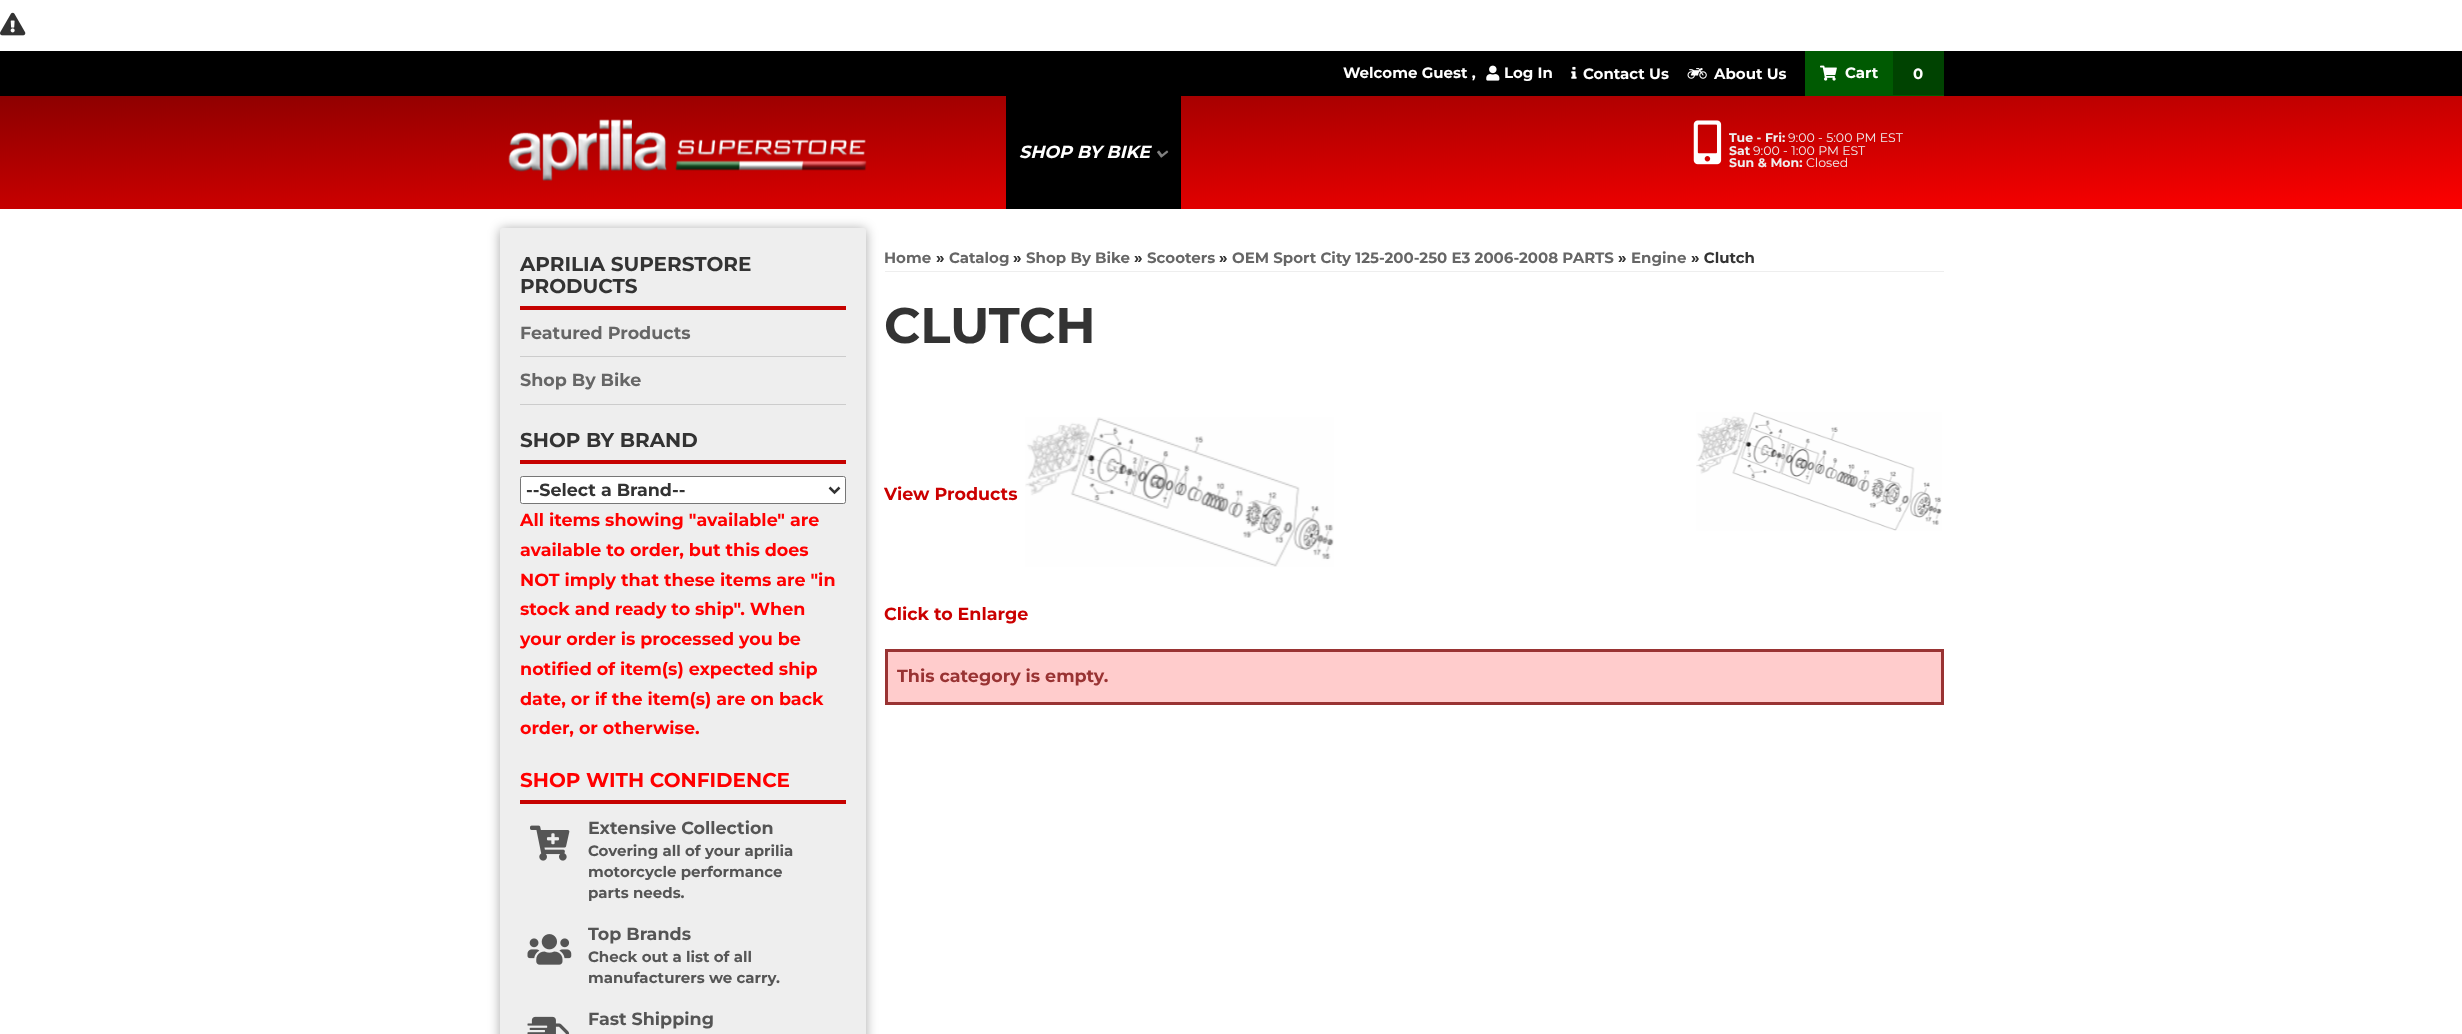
<svg xmlns="http://www.w3.org/2000/svg" width="2462" height="1034" viewBox="0 0 2462 1034">
  <defs>
    <linearGradient id="g1" gradientUnits="userSpaceOnUse" x1="1226" y1="40" x2="1236" y2="265"><stop offset="0" stop-color="rgb(139,0,0)"/><stop offset="1" stop-color="rgb(255,0,0)"/></linearGradient>
  </defs>
  <rect width="100%" height="100%" fill="rgb(255,255,255)"/>
  <image x="0" y="12" width="26" height="24" href="pic1.png"/>
  <rect x="0" y="51" width="2462" height="45" fill="rgb(0,0,0)"/>
  <text x="1343" y="78" font-family="Montserrat" font-size="15" font-weight="bold" fill="rgb(255,255,255)">Welcome Guest ,</text>
  <image x="1486" y="65" width="14" height="16" href="pic2.png"/>
  <text x="1504" y="78" font-family="Montserrat" font-size="15" font-weight="bold" fill="rgb(255,255,255)">Log In</text>
  <image x="1571" y="66" width="6" height="13" href="pic3.png"/>
  <text x="1583" y="79" font-family="Montserrat" font-size="15" font-weight="bold" fill="rgb(255,255,255)">Contact Us</text>
  <image x="1687" y="68" width="20" height="11" href="pic4.png"/>
  <text x="1714" y="79" font-family="Montserrat" font-size="15" font-weight="bold" fill="rgb(255,255,255)">About Us</text>
  <rect x="1805" y="51" width="139" height="45" fill="rgb(0,90,2)"/>
  <image x="1820" y="65" width="17" height="16" href="pic5.png"/>
  <text x="1845" y="78" font-family="Montserrat" font-size="15" font-weight="bold" fill="rgb(255,255,255)">Cart</text>
  <rect x="1893" y="51" width="51" height="44" fill="rgb(0,67,1)"/>
  <text x="1913" y="79" font-family="Montserrat" font-size="15" font-weight="bold" fill="rgb(255,255,255)">0</text>
  <rect x="0" y="96" width="2462" height="113" fill="url(#g1)"/>
  <image x="508" y="119" width="359" height="62" href="pic6.png"/>
  <rect x="1006" y="96" width="175" height="113" fill="rgb(0,0,0)"/>
  <text x="1019" y="158" font-family="Montserrat" font-size="17.5" font-weight="bold" font-style="italic" fill="rgb(255,255,255)">SHOP BY BIKE</text>
  <image x="1157" y="150" width="12" height="8" href="pic7.png"/>
  <image x="1693" y="120" width="29" height="45" href="pic8.png"/>
  <text x="1729" y="142" font-family="Montserrat" font-size="12.5" font-weight="bold" fill="rgb(238,238,238)">Tue - Fri:</text>
  <text x="1788" y="142" font-family="Montserrat" font-size="12.5" fill="rgb(238,238,238)">9:00 - 5:00 PM EST</text>
  <text x="1729" y="155" font-family="Montserrat" font-size="12.5" font-weight="bold" fill="rgb(238,238,238)">Sat</text>
  <text x="1753" y="155" font-family="Montserrat" font-size="12.5" fill="rgb(238,238,238)">9:00 - 1:00 PM EST</text>
  <text x="1729" y="167" font-family="Montserrat" font-size="12.5" font-weight="bold" fill="rgb(238,238,238)">Sun &amp; Mon:</text>
  <text x="1806" y="167" font-family="Montserrat" font-size="12.5" fill="rgb(238,238,238)">Closed</text>
  <rect x="500" y="229" width="366" height="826" rx="2.5" fill="rgba(0,0,0,0.35)" filter="blur(6px)"/>
  <rect x="500" y="228" width="366" height="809" rx="2.5" fill="rgb(238,238,238)"/>
  <rect x="520" y="306" width="326" height="4" fill="rgb(198,2,0)"/>
  <g font-family="Montserrat" font-size="20" font-weight="bold" fill="rgb(51,51,51)">
    <text>
      <tspan x="520" y="271">APRILIA SUPERSTORE</tspan>
      <tspan x="520" y="293">PRODUCTS</tspan>
    </text>
  </g>
  <rect x="520" y="356" width="326" height="1" fill="rgb(204,204,204)"/>
  <text x="520" y="339" font-family="Montserrat" font-size="17.5" font-weight="bold" fill="rgb(102,102,102)">Featured Products</text>
  <rect x="520" y="404" width="326" height="1" fill="rgb(204,204,204)"/>
  <text x="520" y="386" font-family="Montserrat" font-size="17.5" font-weight="bold" fill="rgb(102,102,102)">Shop By Bike</text>
  <rect x="520" y="460" width="326" height="4" fill="rgb(198,2,0)"/>
  <text x="520" y="447" font-family="Montserrat" font-size="20" font-weight="bold" fill="rgb(51,51,51)">SHOP BY BRAND</text>
  <rect x="520.5" y="476.5" width="325" height="27" rx="2" fill="rgb(255,255,255)" stroke="rgb(118,118,118)"/>
  <path d="M829.5 487.5L834.5 492.5L839.5 487.5" fill="none" stroke="rgb(51,51,51)" stroke-width="2.5"/>
  <text x="526" y="496" font-family="Montserrat" font-size="17.5" font-weight="bold" fill="rgb(51,51,51)">--Select a Brand--</text>
  <g font-family="Montserrat" font-size="17.5" font-weight="bold" fill="rgb(255,0,0)">
    <text>
      <tspan x="520" y="526">All items showing "available" are</tspan>
      <tspan x="520" y="556">available to order, but this does</tspan>
      <tspan x="520" y="586">NOT imply that these items are "in</tspan>
      <tspan x="520" y="615">stock and ready to ship". When</tspan>
      <tspan x="520" y="645">your order is processed you be</tspan>
      <tspan x="520" y="675">notified of item(s) expected ship</tspan>
      <tspan x="520" y="705">date, or if the item(s) are on back</tspan>
      <tspan x="520" y="734">order, or otherwise.</tspan>
    </text>
  </g>
  <rect x="520" y="800" width="326" height="4" fill="rgb(198,2,0)"/>
  <text x="520" y="787" font-family="Montserrat" font-size="20" font-weight="bold" fill="rgb(255,0,0)">SHOP WITH CONFIDENCE</text>
  <image x="530" y="825" width="40" height="36" href="pic9.png"/>
  <text x="588" y="834" font-family="Montserrat" font-size="17.5" font-weight="bold" fill="rgb(85,85,85)">Extensive Collection</text>
  <g font-family="Montserrat" font-size="15" font-weight="bold" fill="rgb(85,85,85)">
    <text>
      <tspan x="588" y="856">Covering all of your aprilia</tspan>
      <tspan x="588" y="877">motorcycle performance</tspan>
      <tspan x="588" y="898">parts needs.</tspan>
    </text>
  </g>
  <image x="527" y="934" width="45" height="31" href="pic10.png"/>
  <text x="588" y="940" font-family="Montserrat" font-size="17.5" font-weight="bold" fill="rgb(85,85,85)">Top Brands</text>
  <g font-family="Montserrat" font-size="15" font-weight="bold" fill="rgb(85,85,85)">
    <text>
      <tspan x="588" y="962">Check out a list of all</tspan>
      <tspan x="588" y="983">manufacturers we carry.</tspan>
    </text>
  </g>
  <image x="527" y="1016" width="43" height="18" href="pic11.png"/>
  <text x="588" y="1025" font-family="Montserrat" font-size="17.5" font-weight="bold" fill="rgb(85,85,85)">Fast Shipping</text>
  <rect x="885" y="271" width="1059" height="1" fill="rgb(238,238,238)"/>
  <text x="884" y="263" font-family="Montserrat" font-size="15" font-weight="bold" fill="rgb(102,102,102)">Home</text>
  <text x="936" y="263" font-family="Montserrat" font-size="15" font-weight="bold" fill="rgb(51,51,51)">»</text>
  <text x="949" y="263" font-family="Montserrat" font-size="15" font-weight="bold" fill="rgb(102,102,102)">Catalog</text>
  <text x="1013" y="263" font-family="Montserrat" font-size="15" font-weight="bold" fill="rgb(51,51,51)">»</text>
  <text x="1026" y="263" font-family="Montserrat" font-size="15" font-weight="bold" fill="rgb(102,102,102)">Shop By Bike</text>
  <text x="1134" y="263" font-family="Montserrat" font-size="15" font-weight="bold" fill="rgb(51,51,51)">»</text>
  <text x="1147" y="263" font-family="Montserrat" font-size="15" font-weight="bold" fill="rgb(102,102,102)">Scooters</text>
  <text x="1219" y="263" font-family="Montserrat" font-size="15" font-weight="bold" fill="rgb(51,51,51)">»</text>
  <text x="1232" y="263" font-family="Montserrat" font-size="15" font-weight="bold" fill="rgb(102,102,102)">OEM Sport City 125-200-250 E3 2006-2008 PARTS</text>
  <text x="1618" y="263" font-family="Montserrat" font-size="15" font-weight="bold" fill="rgb(51,51,51)">»</text>
  <text x="1631" y="263" font-family="Montserrat" font-size="15" font-weight="bold" fill="rgb(102,102,102)">Engine</text>
  <text x="1691" y="263" font-family="Montserrat" font-size="15" font-weight="bold" fill="rgb(51,51,51)">» Clutch</text>
  <text x="884" y="343" font-family="Montserrat" font-size="50" font-weight="bold" fill="rgb(51,51,51)">CLUTCH</text>
  <image x="1696" y="412" width="246" height="119" href="pic12.png"/>
  <text x="884" y="500" font-family="Montserrat" font-size="17.5" font-weight="bold" fill="rgb(203,0,0)">View Products</text>
  <image x="1025" y="417" width="309" height="150" href="pic13.png"/>
  <text x="884" y="620" font-family="Montserrat" font-size="17.5" font-weight="bold" fill="rgb(203,0,0)">Click to Enlarge</text>
  <rect x="886.5" y="650.5" width="1056" height="53" fill="rgb(255,204,204)" stroke="rgb(153,51,51)" stroke-width="3"/>
  <text x="897" y="682" font-family="Montserrat" font-size="17.5" font-weight="bold" fill="rgb(153,51,51)">This category is empty.</text>
</svg>
